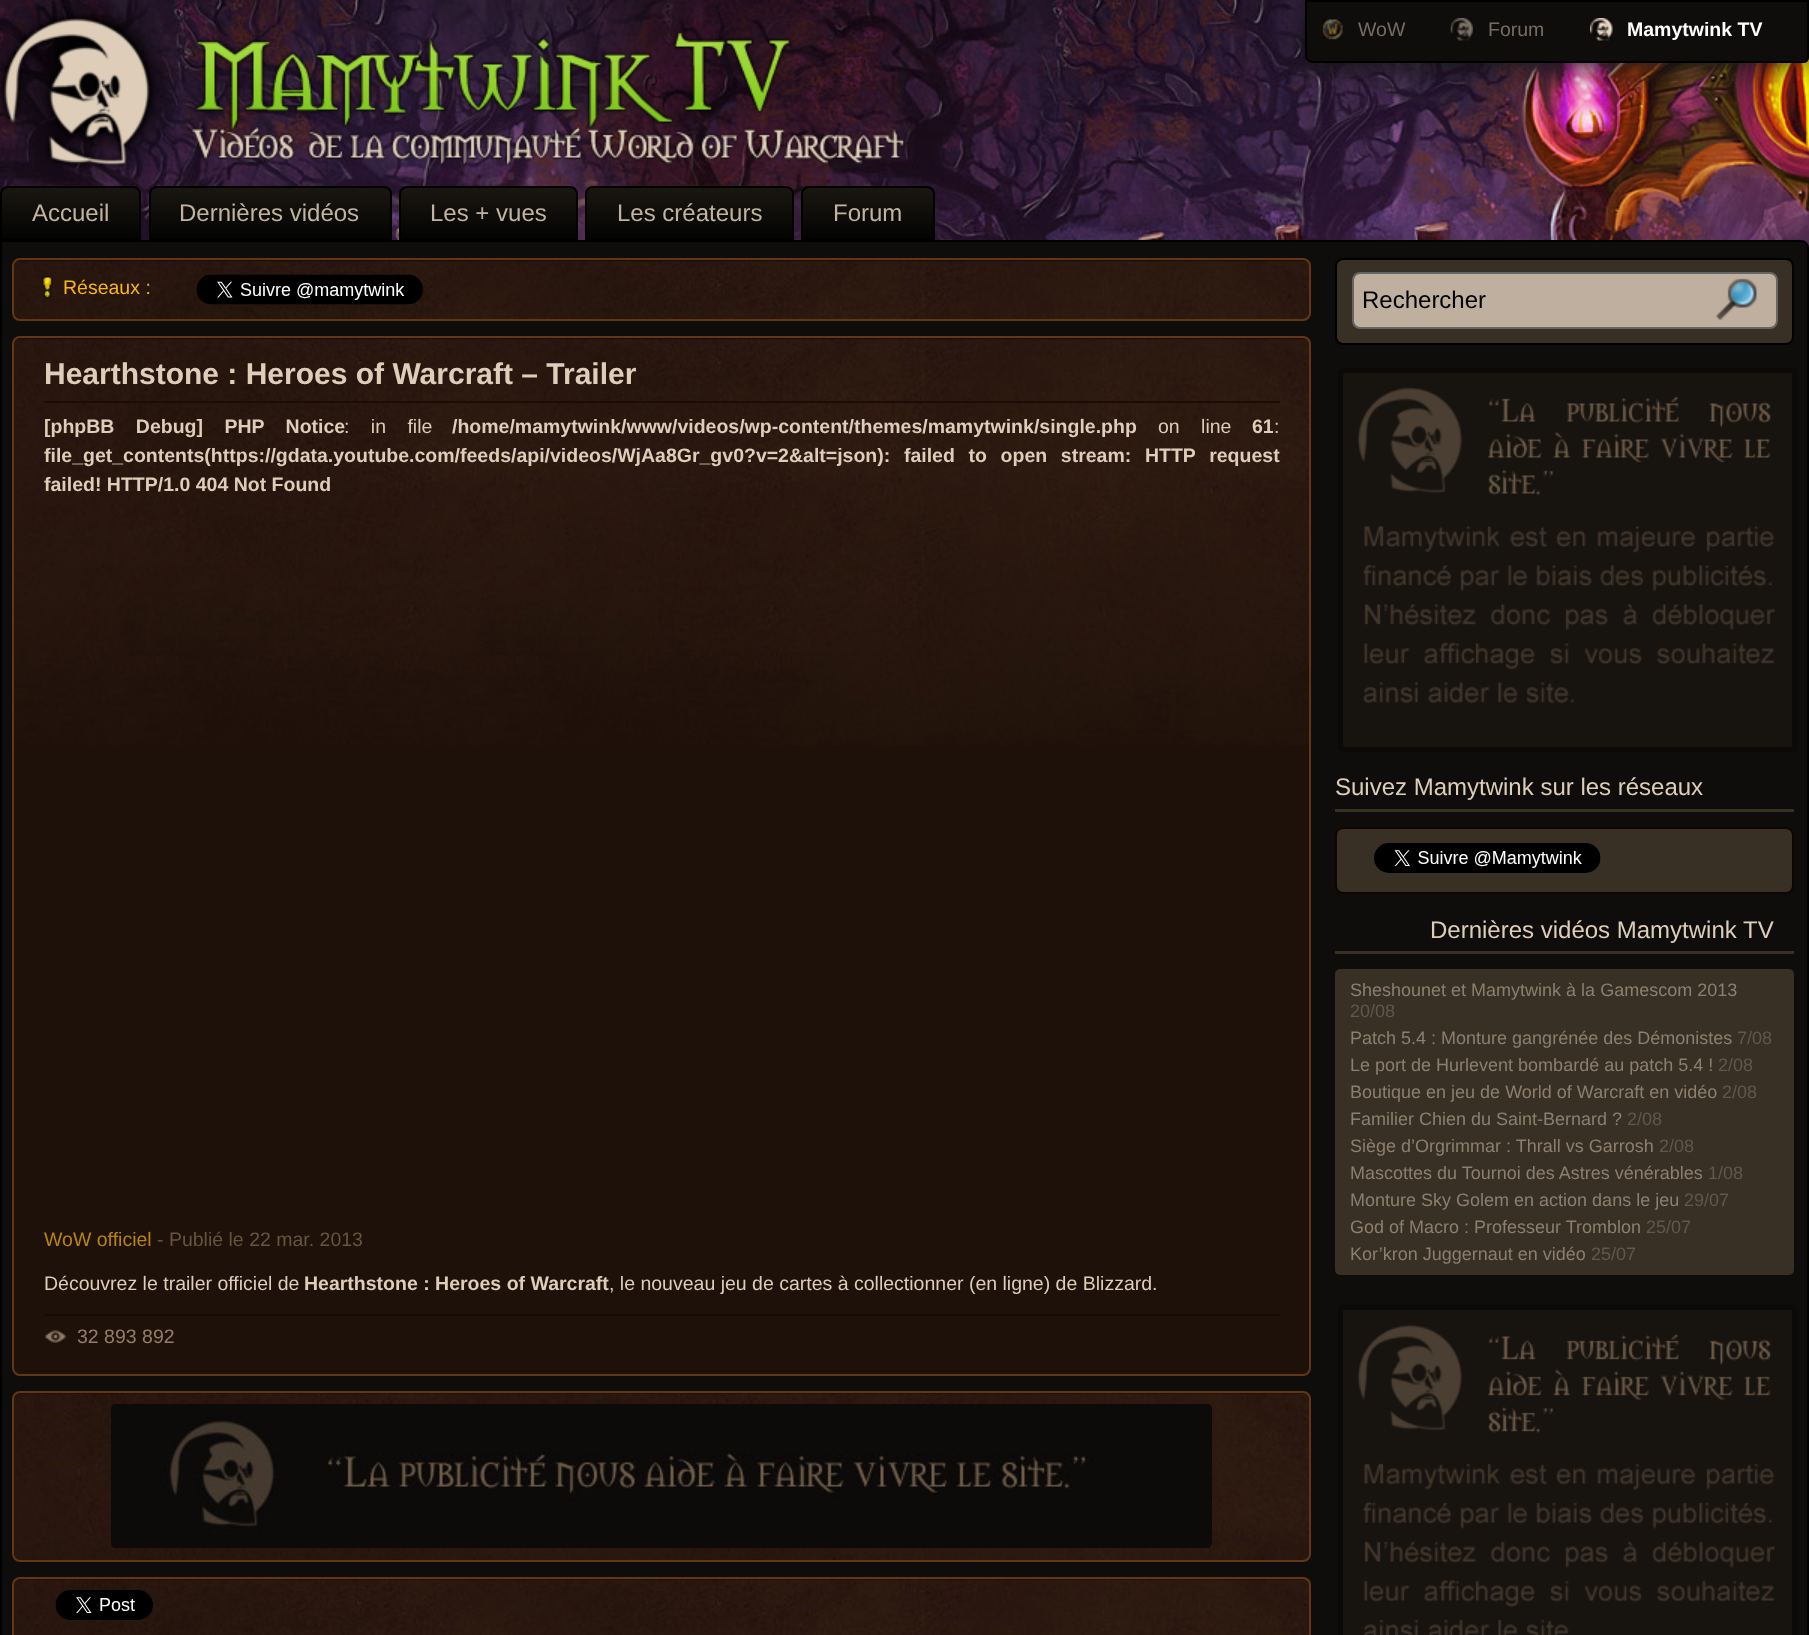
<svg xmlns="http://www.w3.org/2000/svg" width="1809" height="1635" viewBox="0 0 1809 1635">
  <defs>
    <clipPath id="clip1"><path d="M8 186H133C137.5 186 141 189.5 141 194V240H0V194C0 189.5 3.5 186 8 186Z"/></clipPath>
    <linearGradient id="g1" gradientUnits="userSpaceOnUse" x1="1.5" y1="188" x2="1.5" y2="239"><stop offset="0" stop-color="rgb(26,23,17)"/><stop offset="1" stop-color="rgb(3,3,2)"/></linearGradient>
    <clipPath id="clip2"><path d="M157 186H384C388.5 186 392 189.5 392 194V240H149V194C149 189.5 152.5 186 157 186Z"/></clipPath>
    <linearGradient id="g2" gradientUnits="userSpaceOnUse" x1="150" y1="188" x2="150" y2="239"><stop offset="0" stop-color="rgb(26,23,17)"/><stop offset="1" stop-color="rgb(3,3,2)"/></linearGradient>
    <clipPath id="clip3"><path d="M407 186H570C574.5 186 578 189.5 578 194V240H399V194C399 189.5 402.5 186 407 186Z"/></clipPath>
    <linearGradient id="g3" gradientUnits="userSpaceOnUse" x1="401" y1="188" x2="401" y2="239"><stop offset="0" stop-color="rgb(26,23,17)"/><stop offset="1" stop-color="rgb(3,3,2)"/></linearGradient>
    <clipPath id="clip4"><path d="M593 186H786C790.5 186 794 189.5 794 194V240H585V194C585 189.5 588.5 186 593 186Z"/></clipPath>
    <linearGradient id="g4" gradientUnits="userSpaceOnUse" x1="587" y1="188" x2="587" y2="239"><stop offset="0" stop-color="rgb(26,23,17)"/><stop offset="1" stop-color="rgb(3,3,2)"/></linearGradient>
    <clipPath id="clip5"><path d="M809 186H927C931.5 186 935 189.5 935 194V240H801V194C801 189.5 804.5 186 809 186Z"/></clipPath>
    <linearGradient id="g5" gradientUnits="userSpaceOnUse" x1="803" y1="188" x2="803" y2="239"><stop offset="0" stop-color="rgb(26,23,17)"/><stop offset="1" stop-color="rgb(3,3,2)"/></linearGradient>
  </defs>
  <rect width="100%" height="100%" fill="rgb(255,255,255)"/>
  <image x="0" y="0" width="1809" height="248" href="pic1.png"/>
  <image x="0" y="0" width="176" height="182" href="pic2.png"/>
  <image x="192" y="31" width="713" height="135" href="pic3.png"/>
  <rect x="1305" y="0" width="504" height="63" rx="8" fill="rgb(20,20,20)" filter="blur(15px)"/>
  <path d="M1306 1H1808V58C1808 60 1806 62 1804 62H1313C1309 62 1306 59 1306 55Z" fill="rgb(15,13,11)" stroke="rgb(0,0,0)" stroke-width="2"/>
  <image x="1322" y="19" width="21" height="21" href="pic4.png"/>
  <text x="1358" y="36" font-family="Liberation Sans" font-size="19.5" fill="rgb(118,109,98)">WoW</text>
  <image x="1450" y="18" width="23" height="23" href="pic5.png"/>
  <text x="1488" y="36" font-family="Liberation Sans" font-size="19.5" fill="rgb(118,109,98)">Forum</text>
  <image x="1590" y="18" width="23" height="23" href="pic6.png"/>
  <text x="1627" y="36" font-family="Liberation Sans" font-size="19.5" font-weight="bold" fill="rgb(255,255,255)">Mamytwink TV</text>
  <g clip-path="url(#clip1)">
    <rect x="0" y="188" width="141" height="50" fill="url(#g1)"/>
  </g>
  <path d="M8 187H133C137 187 140 190 140 194V239H1V194C1 190 4 187 8 187Z" fill="none" stroke="rgb(0,0,0)" stroke-width="2"/>
  <text x="32" y="221" font-family="Liberation Sans" font-size="24" fill="rgb(193,179,160)">Accueil</text>
  <g clip-path="url(#clip2)">
    <rect x="149" y="188" width="243" height="50" fill="url(#g2)"/>
  </g>
  <path d="M157 187H384C388 187 391 190 391 194V239H150V194C150 190 153 187 157 187Z" fill="none" stroke="rgb(0,0,0)" stroke-width="2"/>
  <text x="179" y="221" font-family="Liberation Sans" font-size="24" fill="rgb(193,179,160)">Dernières vidéos</text>
  <g clip-path="url(#clip3)">
    <rect x="399" y="188" width="179" height="50" fill="url(#g3)"/>
  </g>
  <path d="M407 187H570C574 187 577 190 577 194V239H400V194C400 190 403 187 407 187Z" fill="none" stroke="rgb(0,0,0)" stroke-width="2"/>
  <text x="430" y="221" font-family="Liberation Sans" font-size="24" fill="rgb(193,179,160)">Les + vues</text>
  <g clip-path="url(#clip4)">
    <rect x="585" y="188" width="209" height="50" fill="url(#g4)"/>
  </g>
  <path d="M593 187H786C790 187 793 190 793 194V239H586V194C586 190 589 187 593 187Z" fill="none" stroke="rgb(0,0,0)" stroke-width="2"/>
  <text x="617" y="221" font-family="Liberation Sans" font-size="24" fill="rgb(193,179,160)">Les créateurs</text>
  <g clip-path="url(#clip5)">
    <rect x="801" y="188" width="134" height="50" fill="url(#g5)"/>
  </g>
  <path d="M809 187H927C931 187 934 190 934 194V239H802V194C802 190 805 187 809 187Z" fill="none" stroke="rgb(0,0,0)" stroke-width="2"/>
  <text x="833" y="221" font-family="Liberation Sans" font-size="24" fill="rgb(193,179,160)">Forum</text>
  <path d="M1 241H1801C1805 241 1808 244 1808 248V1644H1Z" fill="rgb(15,13,11)" stroke="rgb(0,0,0)" stroke-width="2"/>
  <image x="13" y="259" width="1298" height="62" href="pic7.png"/>
  <rect x="13" y="259" width="1297" height="61" rx="7" fill="none" stroke="rgb(98,55,18)" stroke-width="2"/>
  <image x="41" y="276" width="12" height="23" href="pic8.png"/>
  <text x="63" y="294" font-family="Liberation Sans" font-size="19.5" fill="rgb(249,181,19)">Réseaux :</text>
  <image x="196" y="274" width="227" height="31" href="pic9.png"/>
  <rect x="12" y="336" width="1299" height="1040" rx="8" fill="rgb(30,17,9)"/>
  <image x="13" y="337" width="1298" height="408" href="pic10.png"/>
  <rect x="13" y="337" width="1297" height="1038" rx="7" fill="none" stroke="rgb(98,55,18)" stroke-width="2"/>
  <rect x="44" y="401" width="1236" height="2" fill="rgb(29,12,5)"/>
  <text x="44" y="384" font-family="Liberation Sans" font-size="30" font-weight="bold" fill="rgb(221,205,185)">Hearthstone : Heroes of Warcraft – Trailer</text>
  <text x="44" y="433" word-spacing="16" font-family="Liberation Sans" font-size="19.5" font-weight="bold" fill="rgb(221,205,185)">[phpBB Debug] PHP Notice</text>
  <text x="344" y="433" word-spacing="16" font-family="Liberation Sans" font-size="19.5" fill="rgb(221,205,185)">: in file</text>
  <text x="452" y="433" font-family="Liberation Sans" font-size="19.5" font-weight="bold" fill="rgb(221,205,185)">/home/mamytwink/www/videos/wp-content/themes/mamytwink/single.php</text>
  <text x="1158" y="433" word-spacing="16" font-family="Liberation Sans" font-size="19.5" fill="rgb(221,205,185)">on line</text>
  <text x="1252" y="433" font-family="Liberation Sans" font-size="19.5" font-weight="bold" fill="rgb(221,205,185)">61</text>
  <text x="1274" y="433" font-family="Liberation Sans" font-size="19.5" fill="rgb(221,205,185)">:</text>
  <g font-family="Liberation Sans" font-size="19.5" font-weight="bold" fill="rgb(221,205,185)">
    <text>
      <tspan x="44" y="462" word-spacing="8.25">file_get_contents(https://gdata.youtube.com/feeds/api/videos/WjAa8Gr_gv0?v=2&amp;alt=json): failed to open stream: HTTP request</tspan>
      <tspan x="44" y="491">failed! HTTP/1.0 404 Not Found</tspan>
    </text>
  </g>
  <text x="44" y="1246" font-family="Liberation Sans" font-size="19.5" fill="rgb(183,132,16)">WoW officiel</text>
  <text x="157" y="1246" font-family="Liberation Sans" font-size="19.5" fill="rgb(103,84,63)">- Publié le 22 mar. 2013</text>
  <text x="44" y="1290" font-family="Liberation Sans" font-size="19.5" fill="rgb(221,205,185)">Découvrez le trailer officiel de</text>
  <text x="304" y="1290" font-family="Liberation Sans" font-size="19.5" font-weight="bold" fill="rgb(221,205,185)">Hearthstone : Heroes of Warcraft</text>
  <text x="609" y="1290" font-family="Liberation Sans" font-size="19.5" fill="rgb(221,205,185)">, le nouveau jeu de cartes à collectionner (en ligne) de Blizzard.</text>
  <rect x="44" y="1314" width="1236" height="2" fill="rgb(20,11,4)"/>
  <image x="44" y="1330" width="23" height="13" href="pic11.png"/>
  <text x="77" y="1343" font-family="Liberation Sans" font-size="19.5" fill="rgb(146,126,105)">32 893 892</text>
  <image x="13" y="1392" width="1298" height="169" href="pic12.png"/>
  <rect x="13" y="1392" width="1297" height="169" rx="7" fill="none" stroke="rgb(98,55,18)" stroke-width="2"/>
  <image x="111" y="1404" width="1101" height="144" href="pic13.png"/>
  <image x="13" y="1578" width="1298" height="57" href="pic14.png"/>
  <rect x="13" y="1578" width="1297" height="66" rx="7" fill="none" stroke="rgb(98,55,18)" stroke-width="2"/>
  <image x="55" y="1590" width="98" height="30" href="pic15.png"/>
  <rect x="1336" y="259" width="457" height="85" rx="7" fill="rgb(56,47,37)" stroke="rgb(0,0,0)" stroke-width="2"/>
  <rect x="1353" y="273" width="424" height="55" rx="7" fill="rgb(190,175,158)" stroke="rgb(101,101,101)" stroke-width="2"/>
  <text x="1362" y="308" font-family="Liberation Sans" font-size="24" fill="rgb(0,0,0)">Rechercher</text>
  <image x="1715" y="278" width="42" height="43" href="pic16.png"/>
  <image x="1343" y="373" width="449" height="374" href="pic17.png"/>
  <rect x="1340.5" y="370.5" width="454" height="379" rx="2.5" fill="none" stroke="rgb(12,10,9)" stroke-width="5"/>
  <rect x="1335" y="809" width="459" height="3" fill="rgb(56,47,37)"/>
  <text x="1335" y="795" font-family="Liberation Sans" font-size="24" fill="rgb(221,205,185)">Suivez Mamytwink sur les réseaux</text>
  <rect x="1336" y="828" width="457" height="65" rx="7" fill="rgb(56,47,37)" stroke="rgb(15,6,3)" stroke-width="2"/>
  <image x="1374" y="843" width="227" height="30" href="pic18.png"/>
  <rect x="1335" y="951" width="459" height="3" fill="rgb(56,47,37)"/>
  <text x="1430" y="938" font-family="Liberation Sans" font-size="24" fill="rgb(221,205,185)">Dernières vidéos Mamytwink TV</text>
  <rect x="1335" y="969" width="459" height="306" rx="5" fill="rgb(56,47,37)"/>
  <text x="1350" y="996" font-family="Liberation Sans" font-size="18" fill="rgb(140,127,111)">Sheshounet et Mamytwink à la Gamescom 2013</text>
  <text x="1350" y="1017" font-family="Liberation Sans" font-size="18" fill="rgb(96,87,77)">20/08</text>
  <text x="1350" y="1044" font-family="Liberation Sans" font-size="18" fill="rgb(140,127,111)">Patch 5.4 : Monture gangrénée des Démonistes</text>
  <text x="1737" y="1044" font-family="Liberation Sans" font-size="18" fill="rgb(96,87,77)">7/08</text>
  <text x="1350" y="1071" font-family="Liberation Sans" font-size="18" fill="rgb(140,127,111)">Le port de Hurlevent bombardé au patch 5.4 !</text>
  <text x="1718" y="1071" font-family="Liberation Sans" font-size="18" fill="rgb(96,87,77)">2/08</text>
  <text x="1350" y="1098" font-family="Liberation Sans" font-size="18" fill="rgb(140,127,111)">Boutique en jeu de World of Warcraft en vidéo</text>
  <text x="1722" y="1098" font-family="Liberation Sans" font-size="18" fill="rgb(96,87,77)">2/08</text>
  <text x="1350" y="1125" font-family="Liberation Sans" font-size="18" fill="rgb(140,127,111)">Familier Chien du Saint-Bernard ?</text>
  <text x="1627" y="1125" font-family="Liberation Sans" font-size="18" fill="rgb(96,87,77)">2/08</text>
  <text x="1350" y="1152" font-family="Liberation Sans" font-size="18" fill="rgb(140,127,111)">Siège d’Orgrimmar : Thrall vs Garrosh</text>
  <text x="1659" y="1152" font-family="Liberation Sans" font-size="18" fill="rgb(96,87,77)">2/08</text>
  <text x="1350" y="1179" font-family="Liberation Sans" font-size="18" fill="rgb(140,127,111)">Mascottes du Tournoi des Astres vénérables</text>
  <text x="1708" y="1179" font-family="Liberation Sans" font-size="18" fill="rgb(96,87,77)">1/08</text>
  <text x="1350" y="1206" font-family="Liberation Sans" font-size="18" fill="rgb(140,127,111)">Monture Sky Golem en action dans le jeu</text>
  <text x="1684" y="1206" font-family="Liberation Sans" font-size="18" fill="rgb(96,87,77)">29/07</text>
  <text x="1350" y="1233" font-family="Liberation Sans" font-size="18" fill="rgb(140,127,111)">God of Macro : Professeur Tromblon</text>
  <text x="1646" y="1233" font-family="Liberation Sans" font-size="18" fill="rgb(96,87,77)">25/07</text>
  <text x="1350" y="1260" font-family="Liberation Sans" font-size="18" fill="rgb(140,127,111)">Kor’kron Juggernaut en vidéo</text>
  <text x="1591" y="1260" font-family="Liberation Sans" font-size="18" fill="rgb(96,87,77)">25/07</text>
  <image x="1343" y="1310" width="449" height="325" href="pic19.png"/>
  <rect x="1340.5" y="1307.5" width="454" height="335" rx="2.5" fill="none" stroke="rgb(12,10,9)" stroke-width="5"/>
</svg>
